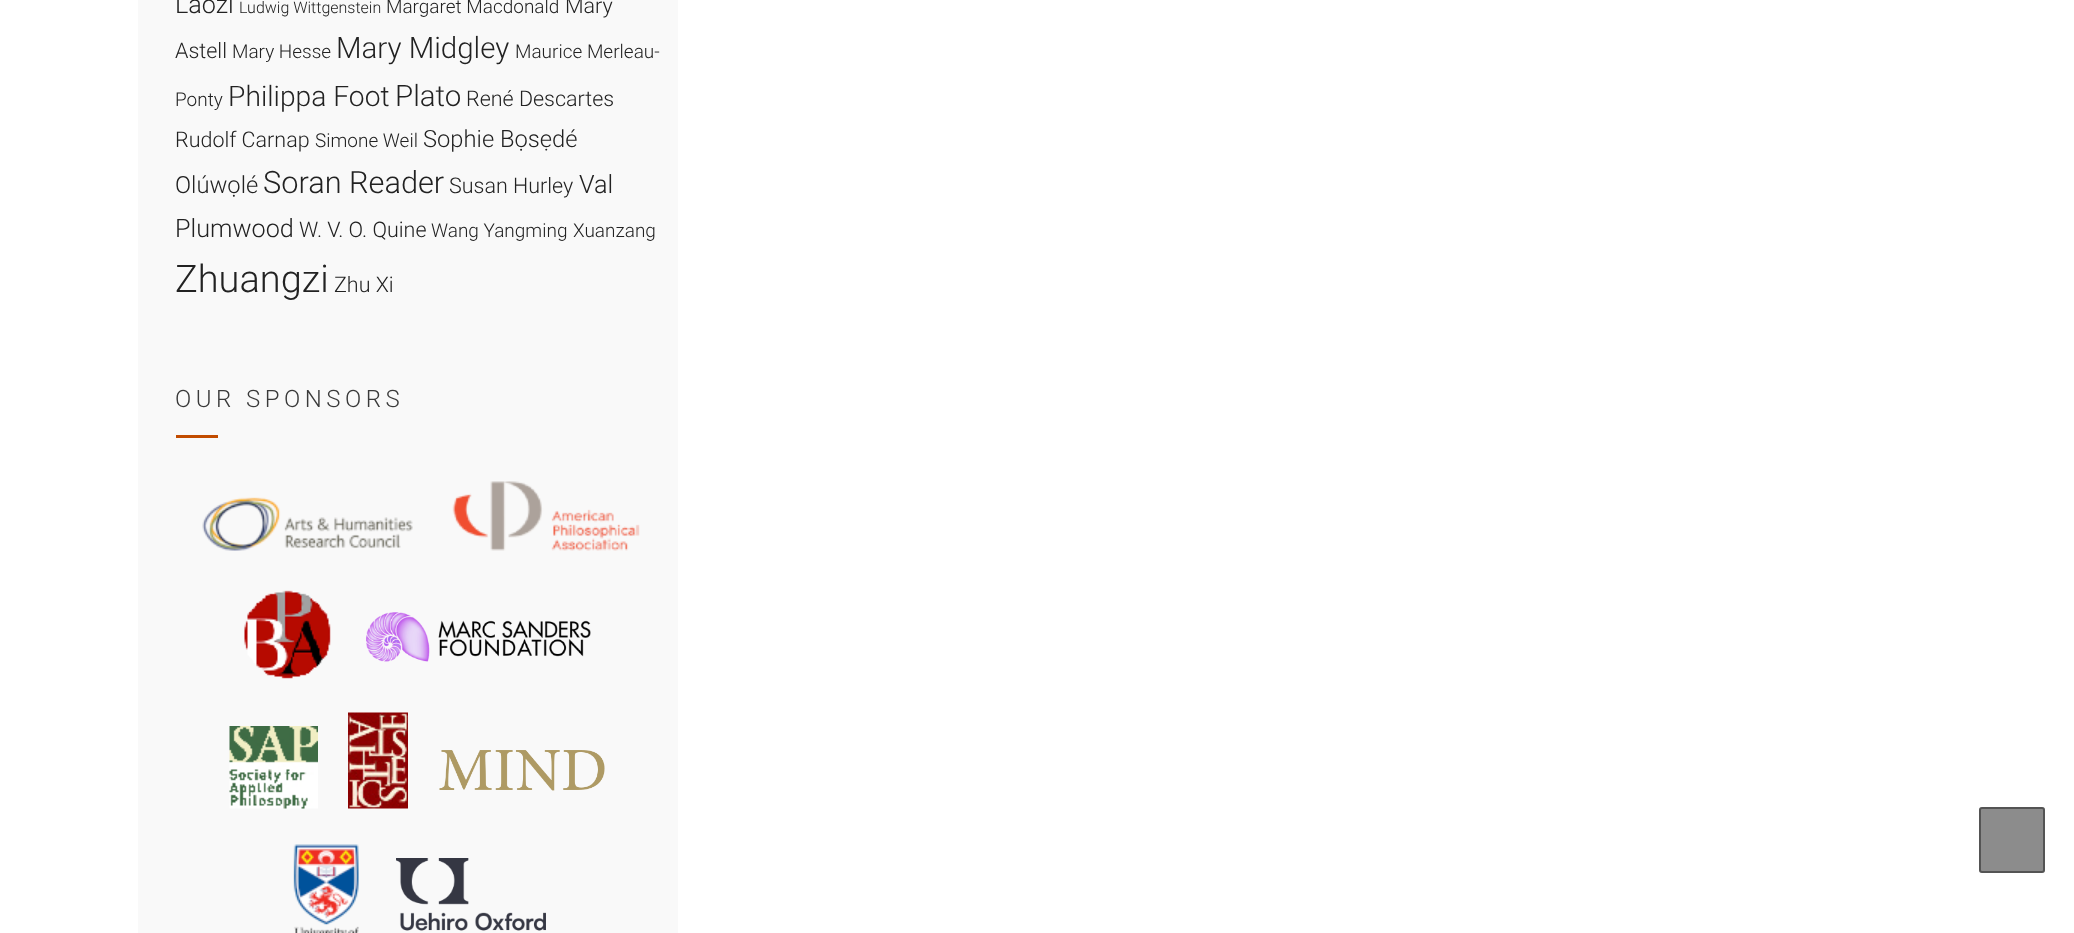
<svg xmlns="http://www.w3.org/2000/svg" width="2074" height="933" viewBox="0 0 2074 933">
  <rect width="100%" height="100%" fill="rgb(255,255,255)"/>
  <rect x="138" y="0" width="540" height="933" fill="rgb(249,249,249)"/>
  <text x="175" y="13" font-family="Roboto" font-size="25.25" font-weight="300" fill="rgb(34,34,34)">Laozi</text>
  <text x="239" y="13" font-family="Roboto" font-size="16" font-weight="300" fill="rgb(34,34,34)">Ludwig Wittgenstein</text>
  <text x="386" y="13" font-family="Roboto" font-size="19" font-weight="300" fill="rgb(34,34,34)">Margaret Macdonald</text>
  <g font-family="Roboto" font-size="21.5" font-weight="300" fill="rgb(34,34,34)">
    <text x="565" y="13">Mary</text>
    <text x="175" y="58">Astell</text>
  </g>
  <text x="232" y="58" font-family="Roboto" font-size="19" font-weight="300" fill="rgb(34,34,34)">Mary Hesse</text>
  <text x="336" y="58" font-family="Roboto" font-size="29.5" font-weight="300" fill="rgb(34,34,34)">Mary Midgley</text>
  <g font-family="Roboto" font-size="19" font-weight="300" fill="rgb(34,34,34)">
    <text x="515" y="58">Maurice Merleau-</text>
    <text x="175" y="106">Ponty</text>
  </g>
  <text x="228" y="106" font-family="Roboto" font-size="28.25" font-weight="300" fill="rgb(34,34,34)">Philippa Foot</text>
  <text x="395" y="106" font-family="Roboto" font-size="29.5" font-weight="300" fill="rgb(34,34,34)">Plato</text>
  <g font-family="Roboto" font-size="21.5" font-weight="300" fill="rgb(34,34,34)">
    <text x="466" y="106">René Descartes</text>
    <text x="175" y="147">Rudolf Carnap</text>
  </g>
  <text x="315" y="147" font-family="Roboto" font-size="19" font-weight="300" fill="rgb(34,34,34)">Simone Weil</text>
  <g font-family="Roboto" font-size="23.75" font-weight="300" fill="rgb(34,34,34)">
    <text x="423" y="147">Sophie Bọsẹdé</text>
    <text x="175" y="193">Olúwọlé</text>
  </g>
  <text x="263" y="193" font-family="Roboto" font-size="30.75" font-weight="300" fill="rgb(34,34,34)">Soran Reader</text>
  <text x="449" y="193" font-family="Roboto" font-size="21.5" font-weight="300" fill="rgb(34,34,34)">Susan Hurley</text>
  <g font-family="Roboto" font-size="25.25" font-weight="300" fill="rgb(34,34,34)">
    <text x="579" y="193">Val</text>
    <text x="175" y="237">Plumwood</text>
  </g>
  <text x="299" y="237" font-family="Roboto" font-size="21.5" font-weight="300" fill="rgb(34,34,34)">W. V. O. Quine</text>
  <g font-family="Roboto" font-size="19" font-weight="300" fill="rgb(34,34,34)">
    <text x="431" y="237">Wang Yangming</text>
    <text x="573" y="237">Xuanzang</text>
  </g>
  <text x="175" y="292" font-family="Roboto" font-size="38" font-weight="300" fill="rgb(34,34,34)">Zhuangzi</text>
  <text x="334" y="292" font-family="Roboto" font-size="21.5" font-weight="300" fill="rgb(34,34,34)">Zhu Xi</text>
  <text x="175" y="407" font-family="Roboto" font-size="24" font-weight="300" letter-spacing="4.5" fill="rgb(58,58,58)">OUR SPONSORS</text>
  <rect x="176" y="435" width="42" height="3" fill="rgb(194,76,0)"/>
  <image x="202" y="497" width="211" height="54" href="pic1.png"/>
  <image x="452" y="481" width="188" height="70" href="pic2.png"/>
  <image x="244" y="590" width="87" height="89" href="pic3.png"/>
  <image x="366" y="612" width="225" height="50" href="pic4.png"/>
  <image x="229" y="726" width="89" height="83" href="pic5.png"/>
  <image x="348" y="712" width="60" height="97" href="pic6.png"/>
  <image x="439" y="750" width="166" height="41" href="pic7.png"/>
  <image x="293" y="844" width="66" height="89" href="pic8.png"/>
  <image x="396" y="858" width="150" height="73" href="pic9.png"/>
  <rect x="1979" y="807" width="66" height="66" rx="3" fill="rgb(140,140,140)"/>
  <rect x="1980" y="808" width="64" height="64" rx="2" fill="none" stroke="rgba(0,0,0,0.4)" stroke-width="2"/>
</svg>
